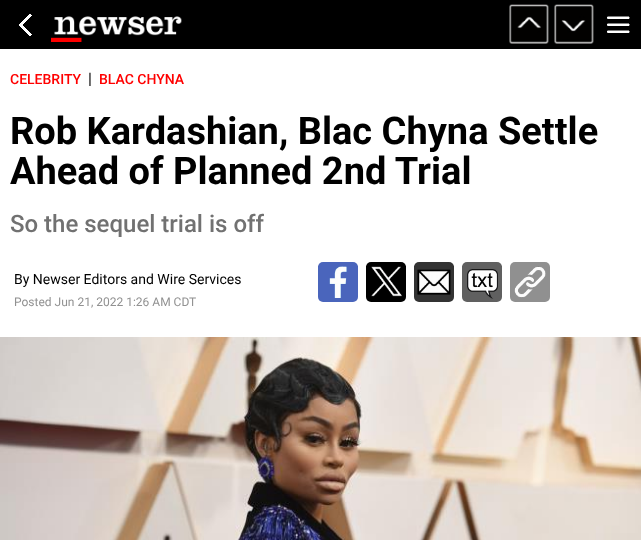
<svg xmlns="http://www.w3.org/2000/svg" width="641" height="540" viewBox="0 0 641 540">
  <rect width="100%" height="100%" fill="rgb(255,255,255)"/>
  <rect x="0" y="0" width="641" height="49" fill="rgb(0,0,0)"/>
  <image x="19" y="14" width="13" height="22" href="pic1.png"/>
  <image x="51" y="16" width="131" height="26" href="pic2.png"/>
  <image x="509" y="4" width="40" height="40" href="pic3.png"/>
  <image x="554" y="4" width="40" height="40" href="pic4.png"/>
  <image x="607" y="16" width="23" height="17" href="pic5.png"/>
  <text x="10" y="84" font-family="Roboto" font-size="14" font-weight="500" fill="rgb(255,0,0)">CELEBRITY</text>
  <text x="88" y="84" font-family="Roboto" font-size="16" fill="rgb(0,0,0)">|</text>
  <text x="99" y="84" font-family="Roboto" font-size="14" font-weight="500" fill="rgb(255,0,0)">BLAC CHYNA</text>
  <g font-family="Roboto" font-size="38" font-weight="bold" fill="rgb(0,0,0)">
    <text>
      <tspan x="10" y="144">Rob Kardashian, Blac Chyna Settle</tspan>
      <tspan x="10" y="184">Ahead of Planned 2nd Trial</tspan>
    </text>
  </g>
  <text x="10" y="232" font-family="Roboto" font-size="24" font-weight="500" fill="rgb(113,113,113)">So the sequel trial is off</text>
  <text x="14" y="284" font-family="Roboto" font-size="14" fill="rgb(0,0,0)">By Newser Editors and Wire Services</text>
  <text x="14" y="306" font-family="Roboto" font-size="12" fill="rgb(145,145,145)">Posted Jun 21, 2022 1:26 AM CDT</text>
  <rect x="318" y="262" width="40" height="40" rx="5" fill="rgb(74,101,188)"/>
  <image x="329" y="266" width="18" height="32" href="pic6.png"/>
  <rect x="366" y="262" width="40" height="40" rx="5" fill="rgb(0,0,0)"/>
  <image x="371" y="266" width="31" height="31" href="pic7.png"/>
  <rect x="414" y="262" width="40" height="40" rx="5" fill="rgb(51,51,51)"/>
  <image x="417" y="269" width="34" height="26" href="pic8.png"/>
  <rect x="462" y="262" width="40" height="40" rx="5" fill="rgb(96,96,96)"/>
  <image x="467" y="269" width="31" height="30" href="pic9.png"/>
  <rect x="510" y="262" width="40" height="40" rx="5" fill="rgb(144,144,144)"/>
  <image x="514" y="266" width="32" height="32" href="pic10.png"/>
  <image x="0" y="337" width="641" height="203" href="pic11.png"/>
</svg>
